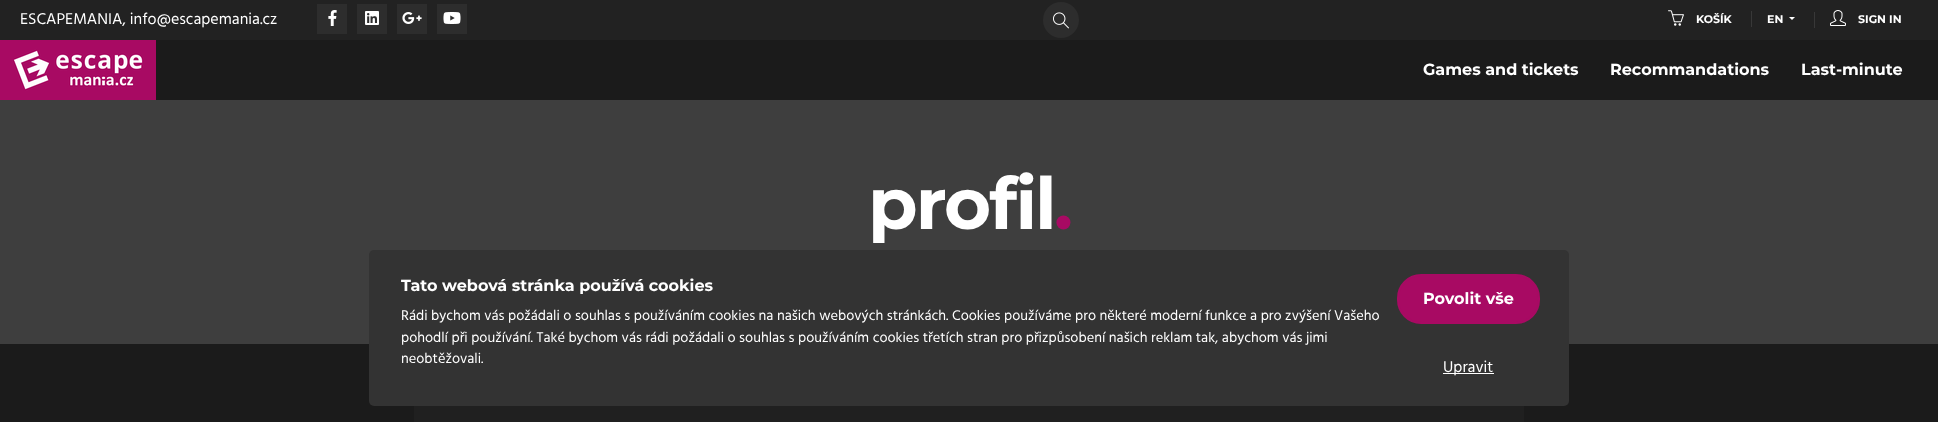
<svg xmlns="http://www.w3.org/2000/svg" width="1938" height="422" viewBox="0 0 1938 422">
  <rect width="100%" height="100%" fill="rgb(27,27,27)"/>
  <rect x="0" y="0" width="1938" height="40" fill="rgb(34,34,34)"/>
  <text x="20" y="24" font-family="Hind" font-size="16" fill="rgb(255,255,255)">ESCAPEMANIA, info@escapemania.cz</text>
  <rect x="317" y="4" width="30" height="30" fill="rgb(45,45,45)"/>
  <image x="328" y="10" width="9" height="16" href="pic1.png"/>
  <rect x="357" y="4" width="30" height="30" fill="rgb(45,45,45)"/>
  <image x="365" y="11" width="14" height="14" href="pic2.png"/>
  <rect x="397" y="4" width="30" height="30" fill="rgb(45,45,45)"/>
  <image x="402" y="12" width="20" height="12" href="pic3.png"/>
  <rect x="437" y="4" width="30" height="30" fill="rgb(45,45,45)"/>
  <image x="443" y="12" width="18" height="12" href="pic4.png"/>
  <circle cx="1061" cy="20" r="18" fill="rgb(45,45,45)"/>
  <image x="1053" y="12" width="16" height="17" href="pic5.png"/>
  <image x="1668" y="10" width="16" height="16" href="pic6.png"/>
  <text x="1696" y="23" font-family="Montserrat" font-size="11" font-weight="bold" fill="rgb(255,255,255)">KOŠÍK</text>
  <rect x="1751" y="11" width="1" height="16" fill="rgb(56,56,56)"/>
  <text x="1767" y="23" font-family="Montserrat" font-size="11" font-weight="bold" fill="rgb(255,255,255)">EN</text>
  <path d="M1789 17H1795L1792 20Z" fill="rgb(255,255,255)"/>
  <rect x="1814" y="12" width="1" height="16" fill="rgb(56,56,56)"/>
  <image x="1830" y="10" width="16" height="16" href="pic7.png"/>
  <text x="1858" y="23" font-family="Montserrat" font-size="11" font-weight="bold" fill="rgb(255,255,255)">SIGN IN</text>
  <image x="0" y="40" width="156" height="60" href="pic8.png"/>
  <g font-family="Montserrat" font-size="16" font-weight="bold" fill="rgb(255,255,255)">
    <text x="1423" y="75">Games and tickets</text>
    <text x="1610" y="75">Recommandations</text>
    <text x="1801" y="75">Last-minute</text>
  </g>
  <rect x="0" y="100" width="1938" height="244" fill="rgb(62,62,62)"/>
  <text x="868" y="229" font-family="Montserrat" font-size="72" font-weight="bold" letter-spacing="-2" fill="rgb(255,255,255)">profil</text>
  <text x="1054" y="229" font-family="Montserrat" font-size="72" font-weight="bold" letter-spacing="-2" fill="rgb(168,10,99)">.</text>
  <rect x="414" y="406" width="1110" height="16" fill="rgb(32,32,32)"/>
  <rect x="369" y="250" width="1200" height="156" rx="5" fill="rgb(51,51,51)"/>
  <text x="401" y="291" font-family="Montserrat" font-size="16" font-weight="bold" fill="rgb(255,255,255)">Tato webová stránka používá cookies</text>
  <g font-family="Hind" font-size="14.4" fill="rgb(255,255,255)">
    <text>
      <tspan x="401" y="320">Rádi bychom vás požádali o souhlas s používáním cookies na našich webových stránkách. Cookies používáme pro některé moderní funkce a pro zvýšení Vašeho</tspan>
      <tspan x="401" y="342">pohodlí při používání. Také bychom vás rádi požádali o souhlas s používáním cookies třetích stran pro přizpůsobení našich reklam tak, abychom vás jimi</tspan>
      <tspan x="401" y="363">neobtěžovali.</tspan>
    </text>
  </g>
  <rect x="1398" y="275" width="141" height="48" rx="23" fill="rgb(168,10,99)" stroke="rgb(168,10,99)" stroke-width="2"/>
  <text x="1423" y="304" font-family="Montserrat" font-size="16" font-weight="bold" fill="rgb(255,255,255)">Povolit vše</text>
  <rect x="1443" y="373" width="51" height="1" fill="rgb(255,255,255)"/>
  <text x="1443" y="372" font-family="Hind" font-size="16" fill="rgb(255,255,255)">Upravit</text>
</svg>
